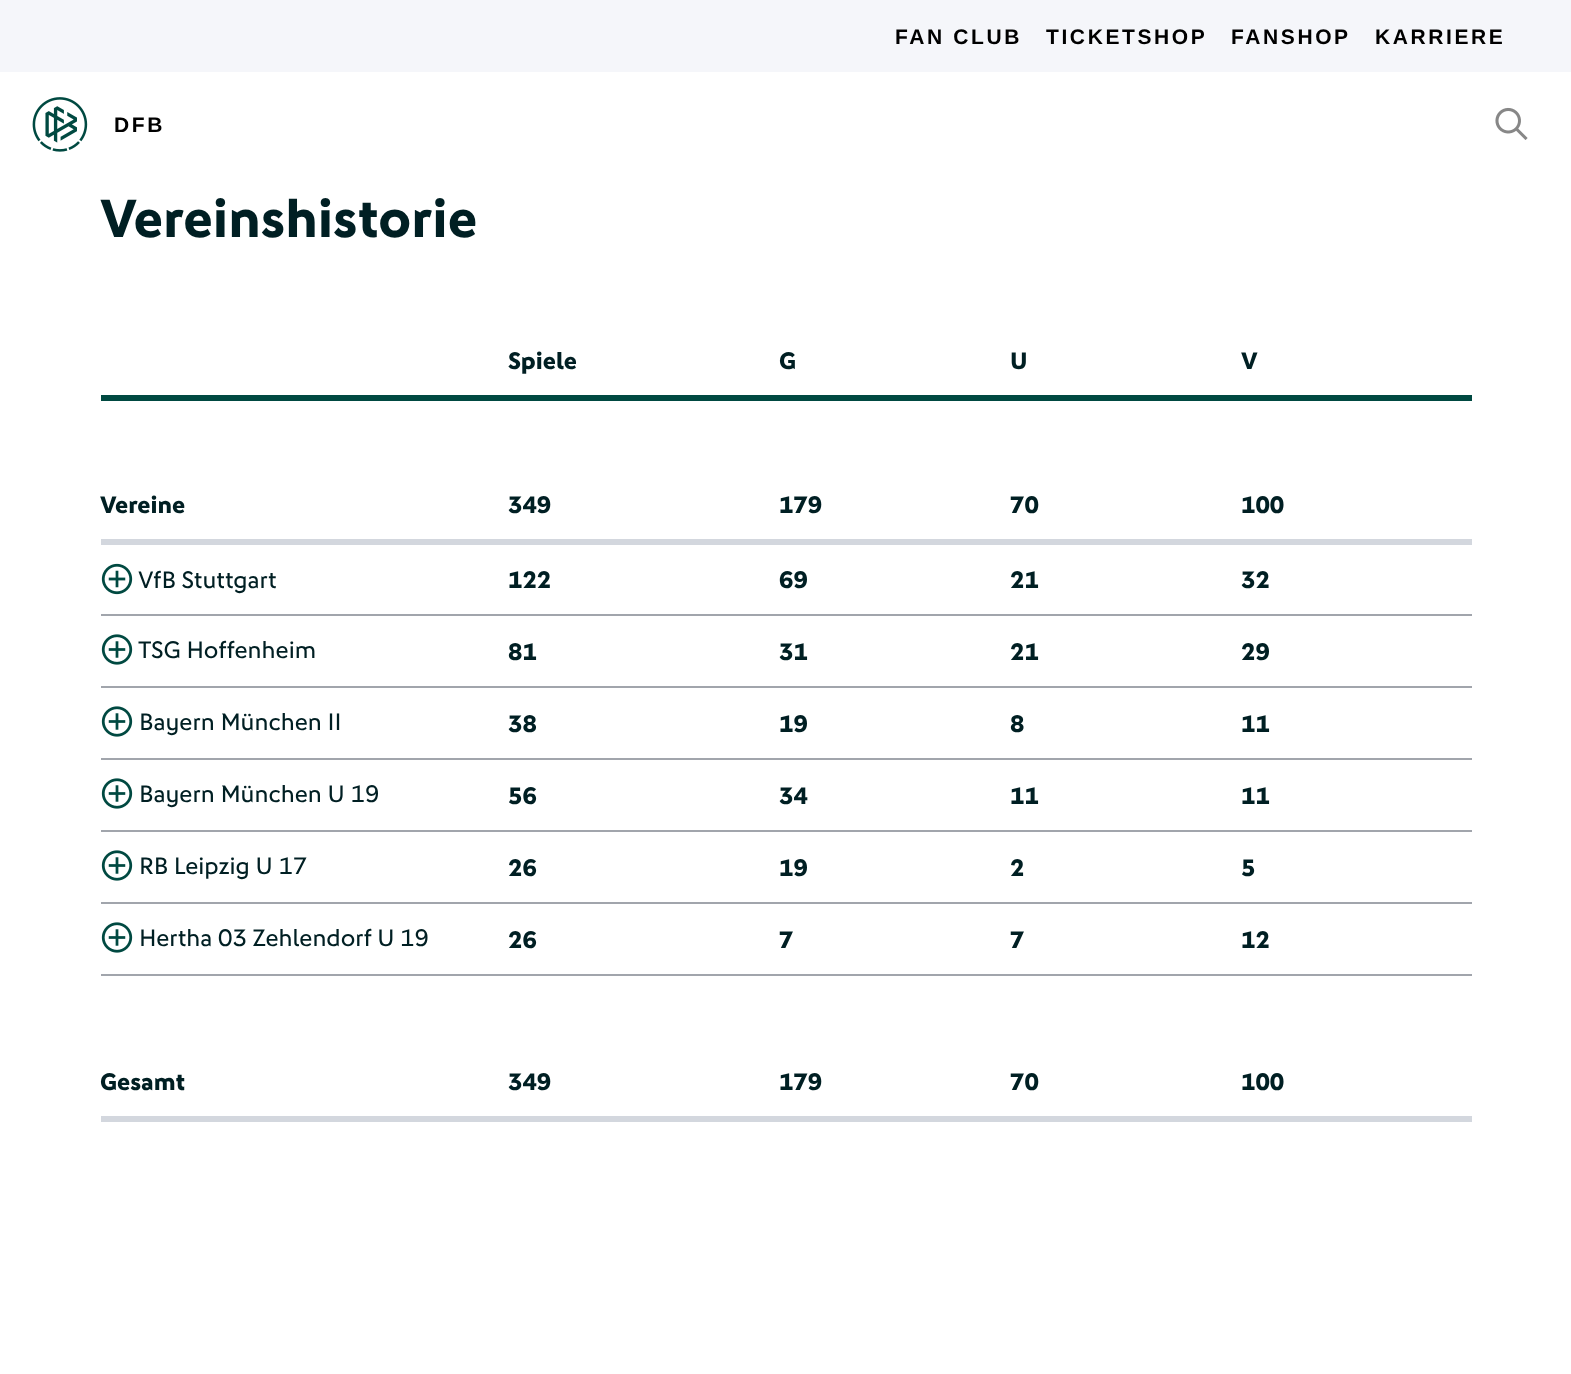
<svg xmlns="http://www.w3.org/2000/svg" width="1571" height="1374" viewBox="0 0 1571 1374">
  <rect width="100%" height="100%" fill="rgb(255,255,255)"/>
  <rect x="0" y="0" width="1571" height="72" fill="rgb(245,246,250)"/>
  <g font-family="Liberation Sans" font-size="21" font-weight="bold" letter-spacing="2.6" fill="rgb(0,0,0)">
    <text x="895" y="44">FAN CLUB</text>
    <text x="1046" y="44">TICKETSHOP</text>
    <text x="1231" y="44">FANSHOP</text>
    <text x="1375" y="44">KARRIERE</text>
  </g>
  <image x="32" y="97" width="56" height="55" href="pic1.png"/>
  <text x="114" y="132" font-family="Liberation Sans" font-size="21" font-weight="bold" letter-spacing="2.6" fill="rgb(0,0,0)">DFB</text>
  <image x="1495" y="107" width="33" height="33" href="pic2.png"/>
  <text x="100" y="237" font-family="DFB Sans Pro" font-size="54" font-weight="600" fill="rgb(0,31,35)">Vereinshistorie</text>
  <rect x="101" y="395" width="1371" height="6" fill="rgb(0,73,65)"/>
  <g font-family="DFB Sans Pro" font-size="24" font-weight="bold" fill="rgb(0,31,35)">
    <text x="508" y="369">Spiele</text>
    <text x="779" y="369">G</text>
    <text x="1010" y="369">U</text>
    <text x="1241" y="369">V</text>
  </g>
  <rect x="101" y="539" width="1371" height="6" fill="rgb(211,215,222)"/>
  <g font-family="DFB Sans Pro" font-size="24" font-weight="bold" fill="rgb(0,31,35)">
    <text x="100" y="513">Vereine</text>
    <text x="508" y="513">349</text>
    <text x="779" y="513">179</text>
    <text x="1010" y="513">70</text>
    <text x="1241" y="513">100</text>
  </g>
  <rect x="101" y="614" width="1371" height="2" fill="rgb(161,165,172)"/>
  <image x="101" y="563" width="32" height="32" href="pic3.png"/>
  <text x="138" y="588" font-family="DFB Sans Pro" font-size="24" fill="rgb(0,31,35)">VfB Stuttgart</text>
  <g font-family="DFB Sans Pro" font-size="24" font-weight="bold" fill="rgb(0,31,35)">
    <text x="508" y="588">122</text>
    <text x="779" y="588">69</text>
    <text x="1010" y="588">21</text>
    <text x="1241" y="588">32</text>
  </g>
  <rect x="101" y="686" width="1371" height="2" fill="rgb(161,165,172)"/>
  <image x="101" y="634" width="32" height="31" href="pic4.png"/>
  <text x="138" y="658" font-family="DFB Sans Pro" font-size="24" fill="rgb(0,31,35)">TSG Hoffenheim</text>
  <g font-family="DFB Sans Pro" font-size="24" font-weight="bold" fill="rgb(0,31,35)">
    <text x="508" y="660">81</text>
    <text x="779" y="660">31</text>
    <text x="1010" y="660">21</text>
    <text x="1241" y="660">29</text>
  </g>
  <rect x="101" y="758" width="1371" height="2" fill="rgb(161,165,172)"/>
  <image x="101" y="706" width="32" height="31" href="pic4.png"/>
  <text x="139" y="730" font-family="DFB Sans Pro" font-size="24" fill="rgb(0,31,35)">Bayern München II</text>
  <g font-family="DFB Sans Pro" font-size="24" font-weight="bold" fill="rgb(0,31,35)">
    <text x="508" y="732">38</text>
    <text x="779" y="732">19</text>
    <text x="1010" y="732">8</text>
    <text x="1241" y="732">11</text>
  </g>
  <rect x="101" y="830" width="1371" height="2" fill="rgb(161,165,172)"/>
  <image x="101" y="778" width="32" height="31" href="pic4.png"/>
  <text x="139" y="802" font-family="DFB Sans Pro" font-size="24" fill="rgb(0,31,35)">Bayern München U 19</text>
  <g font-family="DFB Sans Pro" font-size="24" font-weight="bold" fill="rgb(0,31,35)">
    <text x="508" y="804">56</text>
    <text x="779" y="804">34</text>
    <text x="1010" y="804">11</text>
    <text x="1241" y="804">11</text>
  </g>
  <rect x="101" y="902" width="1371" height="2" fill="rgb(161,165,172)"/>
  <image x="101" y="850" width="32" height="31" href="pic4.png"/>
  <text x="139" y="874" font-family="DFB Sans Pro" font-size="24" fill="rgb(0,31,35)">RB Leipzig U 17</text>
  <g font-family="DFB Sans Pro" font-size="24" font-weight="bold" fill="rgb(0,31,35)">
    <text x="508" y="876">26</text>
    <text x="779" y="876">19</text>
    <text x="1010" y="876">2</text>
    <text x="1241" y="876">5</text>
  </g>
  <rect x="101" y="974" width="1371" height="2" fill="rgb(161,165,172)"/>
  <image x="101" y="922" width="32" height="31" href="pic4.png"/>
  <text x="139" y="946" font-family="DFB Sans Pro" font-size="24" fill="rgb(0,31,35)">Hertha 03 Zehlendorf U 19</text>
  <g font-family="DFB Sans Pro" font-size="24" font-weight="bold" fill="rgb(0,31,35)">
    <text x="508" y="948">26</text>
    <text x="779" y="948">7</text>
    <text x="1010" y="948">7</text>
    <text x="1241" y="948">12</text>
  </g>
  <rect x="101" y="1116" width="1371" height="6" fill="rgb(211,215,222)"/>
  <g font-family="DFB Sans Pro" font-size="24" font-weight="bold" fill="rgb(0,31,35)">
    <text x="100" y="1090">Gesamt</text>
    <text x="508" y="1090">349</text>
    <text x="779" y="1090">179</text>
    <text x="1010" y="1090">70</text>
    <text x="1241" y="1090">100</text>
  </g>
</svg>
